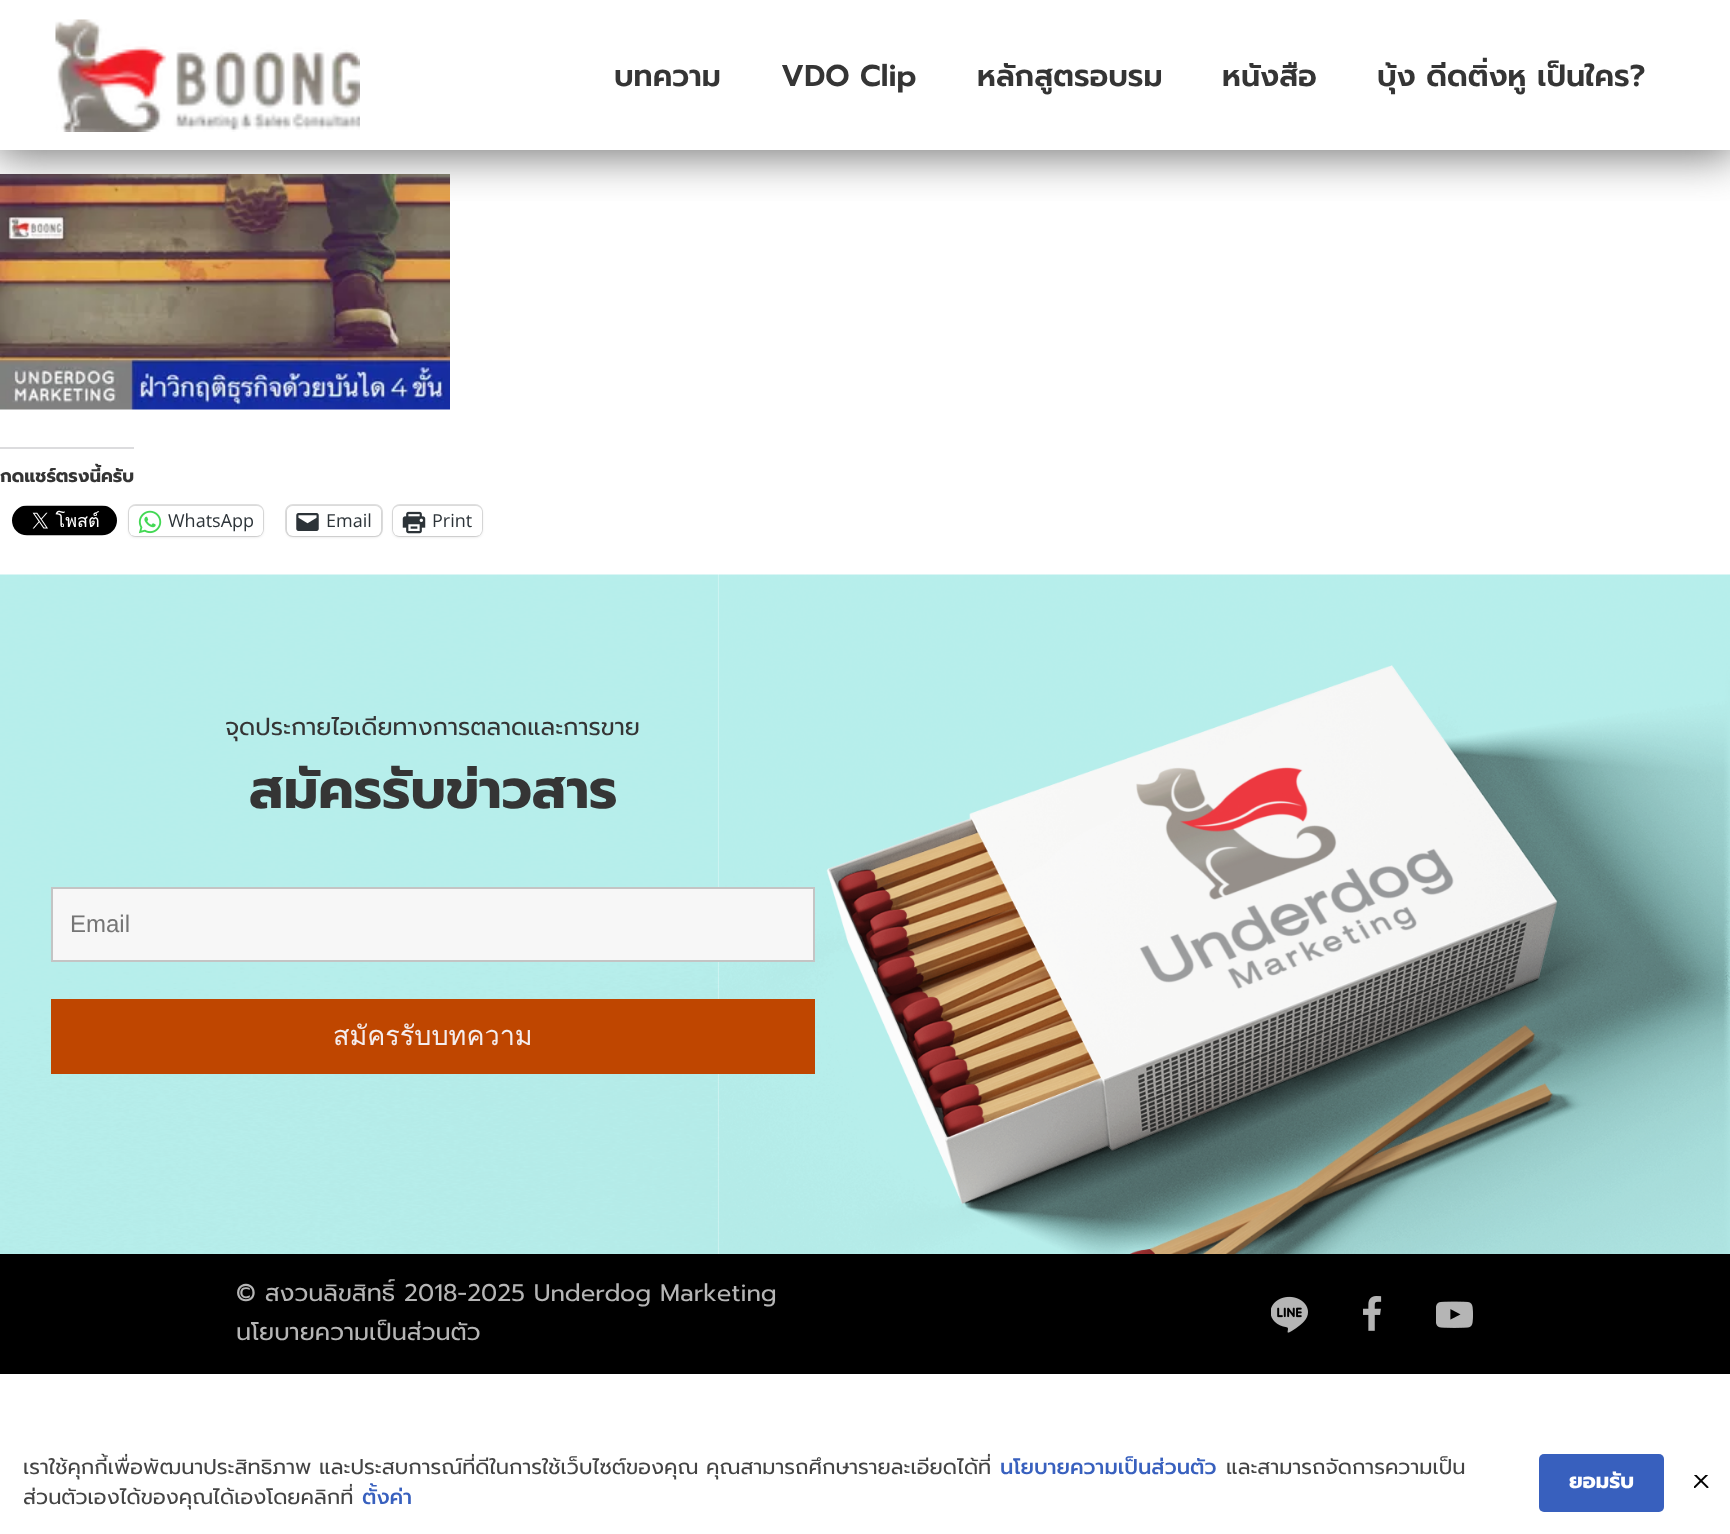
<svg xmlns="http://www.w3.org/2000/svg" width="1730" height="1534" viewBox="0 0 1730 1534">
  <defs>
    <clipPath id="clip1"><rect x="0" y="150" width="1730" height="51"/></clipPath>
  </defs>
  <rect width="100%" height="100%" fill="rgb(255,255,255)"/>
  <image x="0" y="174" width="450" height="236" href="pic2.png"/>
  <g clip-path="url(#clip1)">
    <rect x="-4" y="-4" width="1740" height="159" fill="rgb(112,112,112)" filter="blur(22.5px)"/>
  </g>
  <image x="55" y="19" width="305" height="113" href="pic1.png"/>
  <g font-family="Prompt" font-size="30" font-weight="600" fill="rgb(53,53,53)">
    <text x="614" y="86">บทความ</text>
    <text x="781" y="86">VDO Clip</text>
    <text x="977" y="86">หลักสูตรอบรม</text>
    <text x="1222" y="86">หนังสือ</text>
    <text x="1377" y="86">บุ้ง ดีดติ่งหู เป็นใคร?</text>
  </g>
  <rect x="0" y="447" width="134" height="2" fill="rgb(220,220,222)"/>
  <text x="0" y="482" font-family="Prompt" font-size="18" font-weight="bold" fill="rgb(53,53,53)">กดแชร์ตรงนี้ครับ</text>
  <image x="12" y="505" width="105" height="31" href="pic3.png"/>
  <rect x="129" y="505" width="134" height="31" rx="7" fill="none" stroke="rgb(224,224,224)" stroke-width="2"/>
  <rect x="129" y="507" width="134" height="30" rx="6" fill="rgba(0,0,0,0.12)" filter="blur(1.5px)"/>
  <rect x="129" y="506" width="134" height="30" rx="6" fill="rgb(255,255,255)"/>
  <image x="138" y="510" width="24" height="24" href="pic4.png"/>
  <text x="168" y="527" font-family="Open Sans" font-size="18" fill="rgb(44,51,56)">WhatsApp</text>
  <rect x="286" y="505" width="96" height="31" rx="7" fill="none" stroke="rgb(224,224,224)" stroke-width="2"/>
  <rect x="287" y="507" width="94" height="30" rx="6" fill="rgba(0,0,0,0.12)" filter="blur(1.5px)"/>
  <rect x="287" y="506" width="94" height="30" rx="6" fill="rgb(255,255,255)"/>
  <image x="296" y="513" width="23" height="18" href="pic5.png"/>
  <text x="326" y="527" font-family="Open Sans" font-size="18" fill="rgb(44,51,56)">Email</text>
  <rect x="393" y="505" width="89" height="31" rx="7" fill="none" stroke="rgb(224,224,224)" stroke-width="2"/>
  <rect x="393" y="507" width="89" height="30" rx="6" fill="rgba(0,0,0,0.12)" filter="blur(1.5px)"/>
  <rect x="393" y="506" width="89" height="30" rx="6" fill="rgb(255,255,255)"/>
  <image x="402" y="511" width="24" height="23" href="pic6.png"/>
  <text x="432" y="527" font-family="Open Sans" font-size="18" fill="rgb(44,51,56)">Print</text>
  <image x="0" y="574" width="1730" height="680" href="pic7.png"/>
  <text x="225" y="735" font-family="Prompt" font-size="24" fill="rgb(53,53,53)">จุดประกายไอเดียทางการตลาดและการขาย</text>
  <text x="249" y="808" font-family="Prompt" font-size="54" font-weight="bold" fill="rgb(53,53,53)">สมัครรับข่าวสาร</text>
  <rect x="52" y="888" width="762" height="73" fill="rgb(247,247,247)" stroke="rgb(196,196,196)" stroke-width="2"/>
  <text x="70" y="932" font-family="Liberation Sans" font-size="24" fill="rgb(117,117,117)">Email</text>
  <rect x="51" y="999" width="764" height="75" fill="rgb(191,70,0)"/>
  <text x="333" y="1045" font-family="Loma" font-size="27" fill="rgb(245,237,237)">สมัครรับบทความ</text>
  <rect x="0" y="1254" width="1730" height="120" fill="rgb(0,0,0)"/>
  <g font-family="Prompt" font-size="24" fill="rgb(181,181,181)">
    <text>
      <tspan x="236" y="1301">© สงวนลิขสิทธิ์ 2018-2025 Underdog Marketing</tspan>
      <tspan x="236" y="1340">นโยบายความเป็นส่วนตัว</tspan>
    </text>
  </g>
  <image x="1271" y="1296" width="37" height="37" href="pic8.png"/>
  <image x="1363" y="1296" width="19" height="35" href="pic9.png"/>
  <image x="1436" y="1301" width="37" height="27" href="pic10.png"/>
  <text x="23" y="1474" font-family="Prompt" font-size="21" fill="rgb(68,68,68)">เราใช้คุกกี้เพื่อพัฒนาประสิทธิภาพ และประสบการณ์ที่ดีในการใช้เว็บไซต์ของคุณ คุณสามารถศึกษารายละเอียดได้ที่</text>
  <text x="1000" y="1474" font-family="Prompt" font-size="21" font-weight="500" fill="rgb(56,96,190)">นโยบายความเป็นส่วนตัว</text>
  <g font-family="Prompt" font-size="21" fill="rgb(68,68,68)">
    <text x="1226" y="1474">และสามารถจัดการความเป็น</text>
    <text x="23" y="1504">ส่วนตัวเองได้ของคุณได้เองโดยคลิกที่</text>
  </g>
  <text x="362" y="1504" font-family="Prompt" font-size="21" font-weight="500" fill="rgb(56,96,190)">ตั้งค่า</text>
  <rect x="1539" y="1454" width="125" height="58" rx="5" fill="rgb(56,96,190)"/>
  <text x="1569" y="1488" font-family="Prompt" font-size="21" font-weight="bold" fill="rgb(255,255,255)">ยอมรับ</text>
  <image x="1694" y="1475" width="15" height="13" href="pic11.png"/>
</svg>
